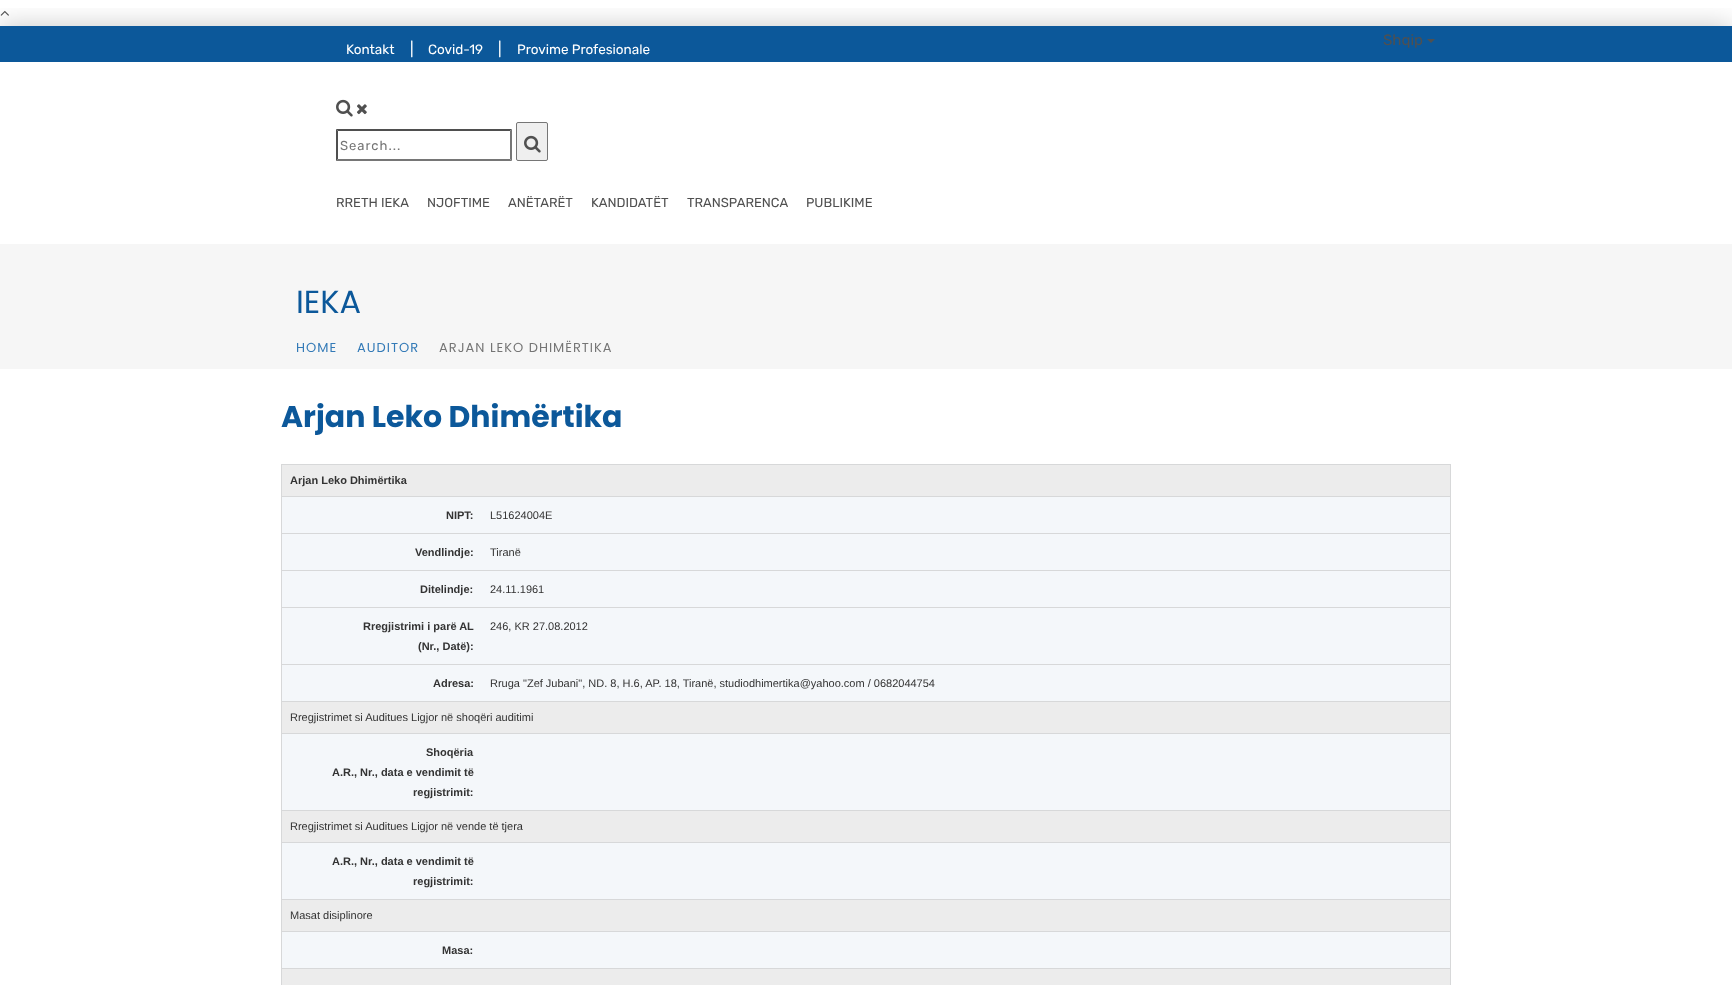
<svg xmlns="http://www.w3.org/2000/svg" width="1732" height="985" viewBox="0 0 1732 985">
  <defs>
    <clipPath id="clip1"><rect x="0" y="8" width="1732" height="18"/></clipPath>
  </defs>
  <rect width="100%" height="100%" fill="rgb(255,255,255)"/>
  <g clip-path="url(#clip1)">
    <rect x="0" y="26" width="1732" height="218" fill="rgba(5,6,6,0.22)" filter="blur(13.5px)"/>
  </g>
  <image x="0" y="10" width="9" height="6" href="pic1.png"/>
  <rect x="0" y="26" width="1732" height="36" fill="rgb(12,88,154)"/>
  <text x="346" y="54" font-family="Rubik" font-size="13.5" font-weight="300" fill="rgb(255,255,255)">Kontakt</text>
  <text x="410" y="54" font-family="Rubik" font-size="15" font-weight="300" fill="rgb(255,255,255)">|</text>
  <text x="428" y="54" font-family="Rubik" font-size="13.5" font-weight="300" fill="rgb(255,255,255)">Covid-19</text>
  <text x="498" y="54" font-family="Rubik" font-size="15" font-weight="300" fill="rgb(255,255,255)">|</text>
  <text x="517" y="54" font-family="Rubik" font-size="13.5" font-weight="300" fill="rgb(255,255,255)">Provime Profesionale</text>
  <text x="1383" y="45" font-family="Rubik" font-size="15" font-weight="300" fill="rgb(80,80,80)">Shqip</text>
  <path d="M1427 39H1435L1431 43Z" fill="rgb(80,80,80)"/>
  <image x="336" y="99" width="17" height="18" href="pic2.png"/>
  <image x="357" y="104" width="10" height="11" href="pic3.png"/>
  <path d="M336 129H512L510 131H338Z" fill="rgb(79,79,79)"/>
  <path d="M512 129V161L510 159V131Z" fill="rgb(118,118,118)"/>
  <path d="M512 161H336L338 159H510Z" fill="rgb(118,118,118)"/>
  <path d="M336 161V129L338 131V159Z" fill="rgb(79,79,79)"/>
  <text x="340" y="150" font-family="Rubik" font-size="13" font-weight="300" letter-spacing="1" fill="rgb(117,117,117)">Search...</text>
  <rect x="516.5" y="122.5" width="31" height="38" rx="1.5" fill="rgb(239,239,239)" stroke="rgb(118,118,118)"/>
  <image x="524" y="135" width="17" height="18" href="pic4.png"/>
  <g font-family="Rubik" font-size="13" font-weight="300" fill="rgb(80,80,80)">
    <text x="336" y="207">RRETH IEKA</text>
    <text x="427" y="207">NJOFTIME</text>
    <text x="508" y="207">ANËTARËT</text>
    <text x="591" y="207">KANDIDATËT</text>
    <text x="687" y="207">TRANSPARENCA</text>
    <text x="806" y="207">PUBLIKIME</text>
  </g>
  <rect x="0" y="244" width="1732" height="125" fill="rgb(246,246,246)"/>
  <text x="296" y="313" font-family="Poppins" font-size="32" fill="rgb(12,88,154)">IEKA</text>
  <g font-family="Poppins" font-size="13" letter-spacing="1" fill="rgb(51,122,183)">
    <text x="296" y="352">HOME</text>
    <text x="357" y="352">AUDITOR</text>
  </g>
  <text x="439" y="352" font-family="Poppins" font-size="13" letter-spacing="1" fill="rgb(117,117,117)">ARJAN LEKO DHIMËRTIKA</text>
  <text x="281" y="427" font-family="Poppins" font-size="30" font-weight="bold" fill="rgb(12,88,154)">Arjan Leko Dhimërtika</text>
  <rect x="282" y="497" width="1168" height="471" fill="rgb(244,247,250)"/>
  <rect x="281" y="464" width="1170" height="1" fill="rgb(215,216,217)"/>
  <rect x="1450" y="464" width="1" height="521" fill="rgb(215,216,217)"/>
  <rect x="281" y="464" width="1" height="521" fill="rgb(215,216,217)"/>
  <rect x="282" y="465" width="1168" height="31" fill="rgb(236,236,236)"/>
  <rect x="281" y="496" width="1170" height="1" fill="rgb(215,216,217)"/>
  <g font-family="Liberation Sans" font-size="11" font-weight="bold" fill="rgb(51,51,51)">
    <text x="290" y="484">Arjan Leko Dhimërtika</text>
    <text x="446" y="519">NIPT:</text>
  </g>
  <rect x="281" y="533" width="1170" height="1" fill="rgb(215,216,217)"/>
  <text x="490" y="519" font-family="Liberation Sans" font-size="11" fill="rgb(51,51,51)">L51624004E</text>
  <text x="415" y="556" font-family="Liberation Sans" font-size="11" font-weight="bold" fill="rgb(51,51,51)">Vendlindje:</text>
  <rect x="281" y="570" width="1170" height="1" fill="rgb(215,216,217)"/>
  <text x="490" y="556" font-family="Liberation Sans" font-size="11" fill="rgb(51,51,51)">Tiranë</text>
  <text x="420" y="593" font-family="Liberation Sans" font-size="11" font-weight="bold" fill="rgb(51,51,51)">Ditelindje:</text>
  <rect x="281" y="607" width="1170" height="1" fill="rgb(215,216,217)"/>
  <text x="490" y="593" font-family="Liberation Sans" font-size="11" fill="rgb(51,51,51)">24.11.1961</text>
  <g font-family="Liberation Sans" font-size="11" font-weight="bold" fill="rgb(51,51,51)">
    <text x="363" y="630">Rregjistrimi i parë AL</text>
    <text x="418" y="650">(Nr., Datë):</text>
  </g>
  <rect x="281" y="664" width="1170" height="1" fill="rgb(215,216,217)"/>
  <text x="490" y="630" font-family="Liberation Sans" font-size="11" fill="rgb(51,51,51)">246, KR 27.08.2012</text>
  <text x="433" y="687" font-family="Liberation Sans" font-size="11" font-weight="bold" fill="rgb(51,51,51)">Adresa:</text>
  <rect x="281" y="701" width="1170" height="1" fill="rgb(215,216,217)"/>
  <text x="490" y="687" font-family="Liberation Sans" font-size="11" fill="rgb(51,51,51)">Rruga "Zef Jubani", ND. 8, H.6, AP. 18, Tiranë, studiodhimertika@yahoo.com / 0682044754</text>
  <rect x="282" y="702" width="1168" height="31" fill="rgb(236,236,236)"/>
  <rect x="281" y="733" width="1170" height="1" fill="rgb(215,216,217)"/>
  <text x="290" y="721" font-family="Liberation Sans" font-size="11" fill="rgb(51,51,51)">Rregjistrimet si Auditues Ligjor në shoqëri auditimi</text>
  <g font-family="Liberation Sans" font-size="11" font-weight="bold" fill="rgb(51,51,51)">
    <text x="426" y="756">Shoqëria</text>
    <text x="332" y="776">A.R., Nr., data e vendimit të</text>
    <text x="413" y="796">regjistrimit:</text>
  </g>
  <rect x="281" y="810" width="1170" height="1" fill="rgb(215,216,217)"/>
  <rect x="282" y="811" width="1168" height="31" fill="rgb(236,236,236)"/>
  <rect x="281" y="842" width="1170" height="1" fill="rgb(215,216,217)"/>
  <text x="290" y="830" font-family="Liberation Sans" font-size="11" fill="rgb(51,51,51)">Rregjistrimet si Auditues Ligjor në vende të tjera</text>
  <g font-family="Liberation Sans" font-size="11" font-weight="bold" fill="rgb(51,51,51)">
    <text x="332" y="865">A.R., Nr., data e vendimit të</text>
    <text x="413" y="885">regjistrimit:</text>
  </g>
  <rect x="281" y="899" width="1170" height="1" fill="rgb(215,216,217)"/>
  <rect x="282" y="900" width="1168" height="31" fill="rgb(236,236,236)"/>
  <rect x="281" y="931" width="1170" height="1" fill="rgb(215,216,217)"/>
  <text x="290" y="919" font-family="Liberation Sans" font-size="11" fill="rgb(51,51,51)">Masat disiplinore</text>
  <text x="442" y="954" font-family="Liberation Sans" font-size="11" font-weight="bold" fill="rgb(51,51,51)">Masa:</text>
  <rect x="281" y="968" width="1170" height="1" fill="rgb(215,216,217)"/>
  <rect x="282" y="969" width="1168" height="16" fill="rgb(236,236,236)"/>
</svg>
